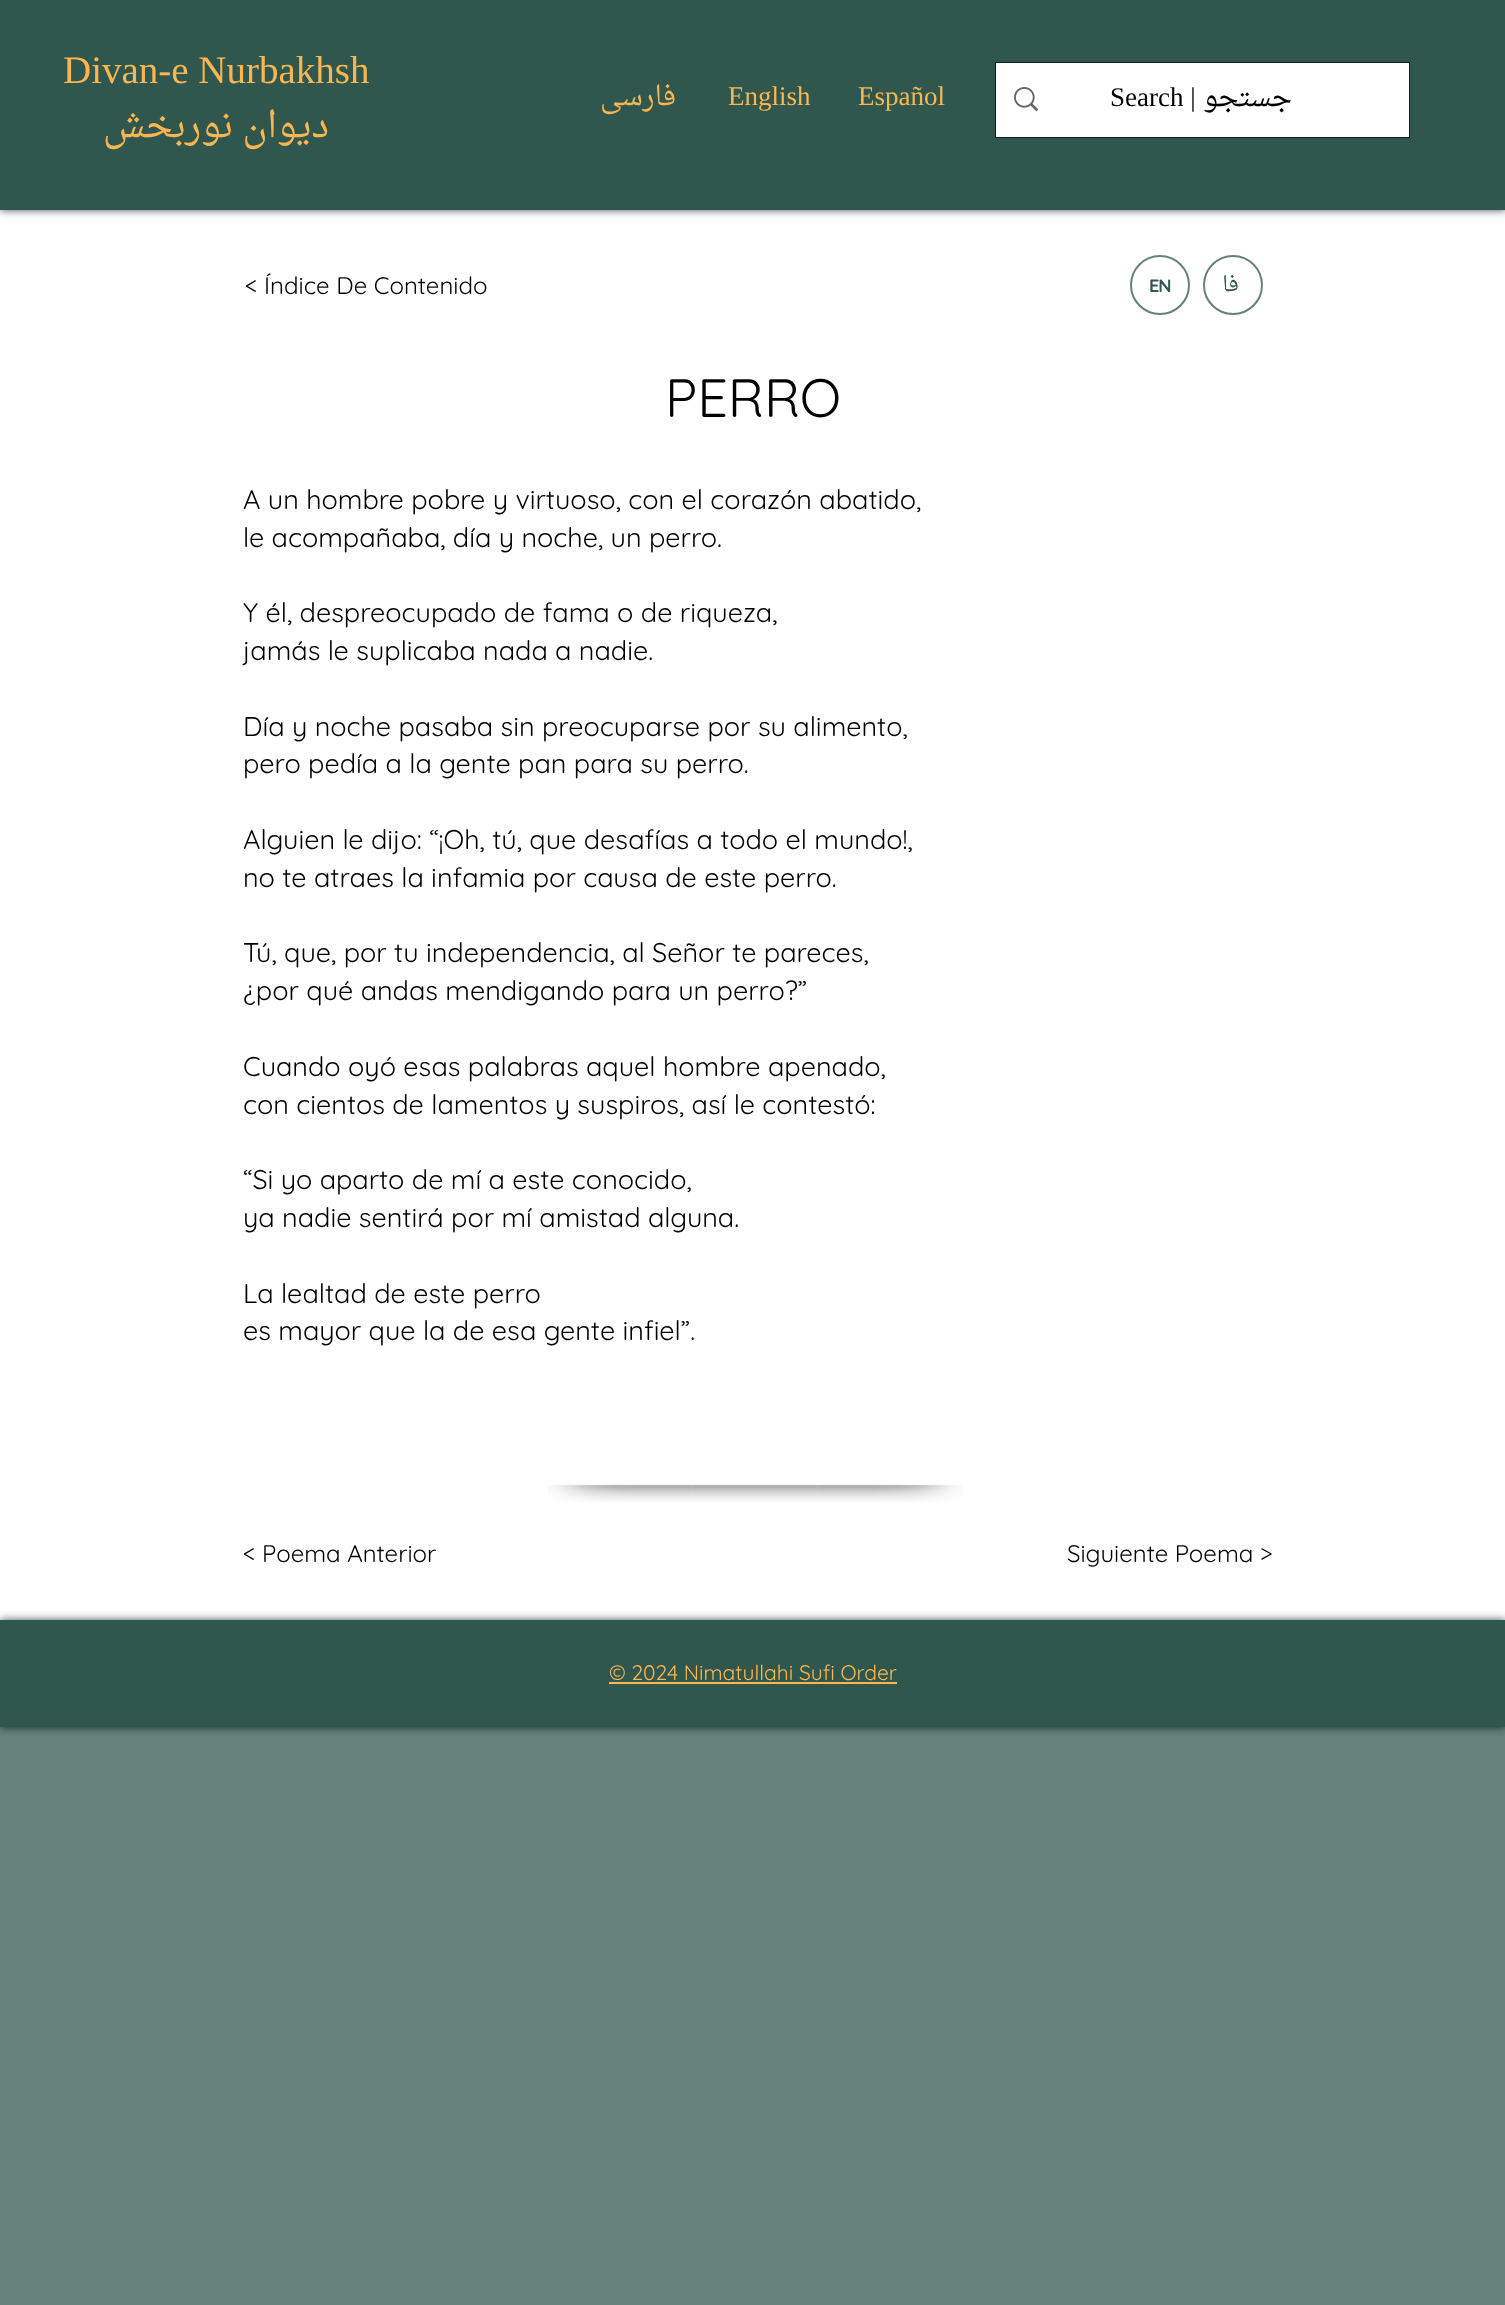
<svg xmlns="http://www.w3.org/2000/svg" width="1505" height="2305" viewBox="0 0 1505 2305">
  <rect width="100%" height="100%" fill="rgb(100,129,122)"/>
  <rect x="0" y="210" width="1505" height="1410" fill="rgb(255,255,255)"/>
  <rect x="0" y="0" width="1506" height="210" fill="rgba(0,0,0,0.7)" filter="blur(4px)"/>
  <rect x="0" y="0" width="1505" height="210" fill="rgb(48,87,78)"/>
  <text x="63" y="83" font-family="Liberation Serif" font-size="39" fill="rgb(251,182,81)">Divan-e Nurbakhsh</text>
  <text x="329" y="137" font-family="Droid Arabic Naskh" font-size="36" direction="rtl" fill="rgb(251,182,81)">دیوان نوربخش</text>
  <text x="676" y="105" font-family="Droid Arabic Naskh" font-size="27" direction="rtl" fill="rgb(251,182,81)">فارسی</text>
  <g font-family="Liberation Serif" font-size="27" fill="rgb(251,182,81)">
    <text x="728" y="105">English</text>
    <text x="858" y="105">Español</text>
  </g>
  <rect x="996" y="63" width="413" height="74" fill="none" stroke="rgb(19,35,31)" stroke-width="2"/>
  <rect x="996" y="63" width="413" height="74" fill="rgb(255,255,255)"/>
  <image x="1014" y="87" width="24" height="25" href="pic1.png"/>
  <text x="1110" y="106" font-family="Liberation Serif" font-size="27" fill="rgb(0,0,0)">Search |</text>
  <text x="1292" y="106" font-family="Droid Arabic Naskh" font-size="27" direction="rtl" fill="rgb(0,0,0)">جستجو</text>
  <text x="245" y="294" font-family="Quicksand" font-size="24" fill="rgb(0,0,0)">&lt; Índice De Contenido</text>
  <circle cx="1160" cy="285" r="29" fill="none" stroke="rgb(100,129,122)" stroke-width="2"/>
  <text x="1149" y="292" font-family="Quicksand" font-size="18" font-weight="bold" letter-spacing="-1" fill="rgb(48,87,78)">EN</text>
  <circle cx="1233" cy="285" r="29" fill="none" stroke="rgb(100,129,122)" stroke-width="2"/>
  <text x="1239" y="291" font-family="Droid Arabic Naskh" font-size="21" letter-spacing="-1" direction="rtl" fill="rgb(48,87,78)">فا</text>
  <text x="665" y="417" font-family="Quicksand" font-size="54" fill="rgb(0,0,0)">PERRO</text>
  <g font-family="Quicksand" font-size="27" fill="rgb(0,0,0)">
    <text>
      <tspan x="243" y="509">A un hombre pobre y virtuoso, con el corazón abatido,</tspan>
      <tspan x="243" y="547">le acompañaba, día y noche, un perro.</tspan>
    </text>
    <text>
      <tspan x="243" y="622">Y él, despreocupado de fama o de riqueza,</tspan>
      <tspan x="243" y="660">jamás le suplicaba nada a nadie.</tspan>
    </text>
    <text>
      <tspan x="243" y="736">Día y noche pasaba sin preocuparse por su alimento,</tspan>
      <tspan x="243" y="773">pero pedía a la gente pan para su perro.</tspan>
    </text>
    <text>
      <tspan x="243" y="849">Alguien le dijo: “¡Oh, tú, que desafías a todo el mundo!,</tspan>
      <tspan x="243" y="887">no te atraes la infamia por causa de este perro.</tspan>
    </text>
    <text>
      <tspan x="243" y="962">Tú, que, por tu independencia, al Señor te pareces,</tspan>
      <tspan x="243" y="1000">¿por qué andas mendigando para un perro?”</tspan>
    </text>
    <text>
      <tspan x="243" y="1076">Cuando oyó esas palabras aquel hombre apenado,</tspan>
      <tspan x="243" y="1114">con cientos de lamentos y suspiros, así le contestó:</tspan>
    </text>
    <text>
      <tspan x="243" y="1189">“Si yo aparto de mí a este conocido,</tspan>
      <tspan x="243" y="1227">ya nadie sentirá por mí amistad alguna.</tspan>
    </text>
    <text>
      <tspan x="243" y="1303">La lealtad de este perro</tspan>
      <tspan x="243" y="1340">es mayor que la de esa gente infiel”.</tspan>
    </text>
  </g>
  <image x="691" y="1484" width="127" height="18" href="pic3.png"/>
  <image x="548" y="1484" width="144" height="18" href="pic2.png"/>
  <image x="817" y="1484" width="145" height="18" href="pic4.png"/>
  <g font-family="Quicksand" font-size="24" fill="rgb(0,0,0)">
    <text x="243" y="1562">&lt; Poema Anterior</text>
    <text x="1067" y="1562">Siguiente Poema &gt;</text>
  </g>
  <rect x="0" y="1620" width="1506" height="107" fill="rgba(0,0,0,0.7)" filter="blur(4px)"/>
  <rect x="0" y="1620" width="1505" height="107" fill="rgb(48,87,78)"/>
  <text x="609" y="1680" font-family="Quicksand" font-size="21" fill="rgb(251,182,81)">© 2024 Nimatullahi Sufi Order</text>
  <rect x="609" y="1682" width="288" height="2" fill="rgb(251,182,81)"/>
</svg>
